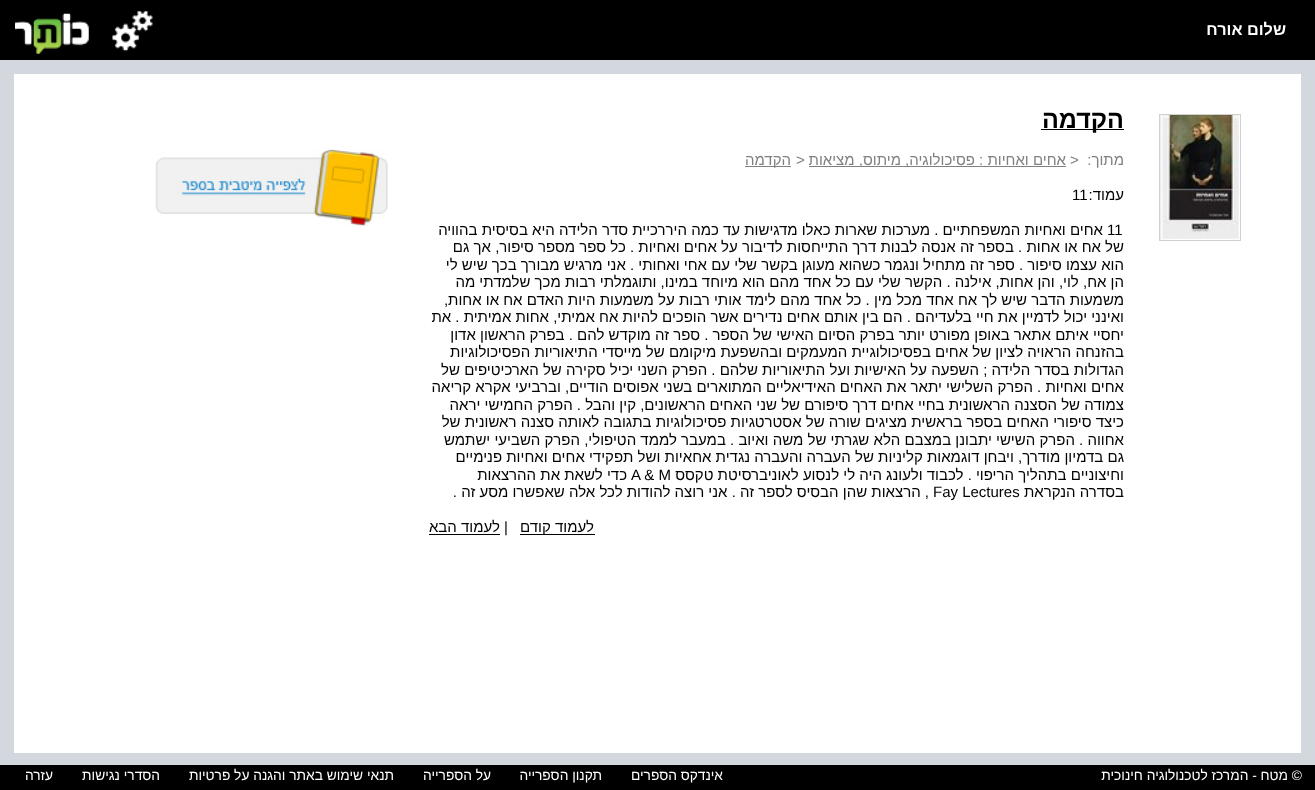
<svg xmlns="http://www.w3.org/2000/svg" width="1315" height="790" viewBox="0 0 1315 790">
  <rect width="100%" height="100%" fill="rgb(211,216,222)"/>
  <rect x="0" y="0" width="1315" height="60" fill="rgb(0,0,0)"/>
  <text x="1286" y="35" font-family="Liberation Sans" font-size="16.25" font-weight="bold" direction="rtl" fill="rgb(255,255,255)">שלום אורח</text>
  <image x="112" y="10" width="41" height="42" href="pic1.png"/>
  <image x="15" y="13" width="74" height="41" href="pic2.png"/>
  <rect x="14" y="74" width="1287" height="679" fill="rgb(255,255,255)"/>
  <rect x="1159.5" y="114.5" width="81" height="126" fill="none" stroke="rgb(209,209,209)"/>
  <image x="1160" y="115" width="80" height="125" href="pic3.png"/>
  <rect x="1041" y="129" width="83" height="1" fill="rgb(0,0,0)"/>
  <text x="1124" y="128" font-family="Liberation Sans" font-size="25" font-weight="bold" direction="rtl" fill="rgb(0,0,0)">הקדמה</text>
  <text x="1124" y="165" font-family="Liberation Sans" font-size="15" direction="rtl" fill="rgb(128,128,128)">מתוך:</text>
  <text x="1070" y="165" font-family="Liberation Sans" font-size="15" fill="rgb(128,128,128)">&gt;</text>
  <rect x="809" y="166" width="257" height="1" fill="rgb(128,128,128)"/>
  <text x="1066" y="165" font-family="Liberation Sans" font-size="15" direction="rtl" fill="rgb(128,128,128)">אחים ואחיות : פסיכולוגיה, מיתוס, מציאות</text>
  <text x="796" y="165" font-family="Liberation Sans" font-size="15" fill="rgb(128,128,128)">&gt;</text>
  <rect x="745" y="166" width="46" height="1" fill="rgb(128,128,128)"/>
  <text x="791" y="165" font-family="Liberation Sans" font-size="15" direction="rtl" fill="rgb(128,128,128)">הקדמה</text>
  <text x="1124" y="200" font-family="Liberation Sans" font-size="15" direction="rtl" fill="rgb(0,0,0)">עמוד:</text>
  <g font-family="Liberation Sans" font-size="15" fill="rgb(0,0,0)">
    <text x="1072" y="200">11</text>
    <text x="1107" y="235">11</text>
  </g>
  <g font-family="Liberation Sans" font-size="15" direction="rtl" fill="rgb(0,0,0)">
    <text x="1103" y="235">אחים ואחיות המשפחתיים . מערכות שארות כאלו מדגישות עד כמה היררכיית סדר הלידה היא בסיסית בהוויה</text>
    <text>
      <tspan x="1124" y="252">של אח או אחות . בספר זה אנסה לבנות דרך התייחסות לדיבור על אחים ואחיות . כל ספר מספר סיפור, אך גם</tspan>
      <tspan x="1124" y="270">הוא עצמו סיפור . ספר זה מתחיל ונגמר כשהוא מעוגן בקשר שלי עם אחי ואחותי . אני מרגיש מבורך בכך שיש לי</tspan>
      <tspan x="1124" y="287">הן אח, לוי, והן אחות, אילנה . הקשר שלי עם כל אחד מהם הוא מיוחד במינו, ותוגמלתי רבות מכך שלמדתי מה</tspan>
      <tspan x="1124" y="305">משמעות הדבר שיש לך אח אחד מכל מין . כל אחד מהם לימד אותי רבות על משמעות היות האדם אח או אחות,</tspan>
      <tspan x="1124" y="322">ואינני יכול לדמיין את חיי בלעדיהם . הם בין אותם אחים נדירים אשר הופכים להיות אח אמיתי, אחות אמיתית . את</tspan>
      <tspan x="1124" y="340">יחסיי איתם אתאר באופן מפורט יותר בפרק הסיום האישי של הספר . ספר זה מוקדש להם . בפרק הראשון אדון</tspan>
      <tspan x="1124" y="357">בהזנחה הראויה לציון של אחים בפסיכולוגיית המעמקים ובהשפעת מיקומם של מייסדי התיאוריות הפסיכולוגיות</tspan>
      <tspan x="1124" y="375">הגדולות בסדר הלידה ; השפעה על האישיות ועל התיאוריות שלהם . הפרק השני יכיל סקירה של הארכיטיפים של</tspan>
      <tspan x="1124" y="392">אחים ואחיות . הפרק השלישי יתאר את האחים האידיאליים המתוארים בשני אפוסים הודיים, וברביעי אקרא קריאה</tspan>
      <tspan x="1124" y="410">צמודה של הסצנה הראשונית בחיי אחים דרך סיפורם של שני האחים הראשונים, קין והבל . הפרק החמישי יראה</tspan>
      <tspan x="1124" y="427">כיצד סיפורי האחים בספר בראשית מציגים שורה של אסטרטגיות פסיכולוגיות בתגובה לאותה סצנה ראשונית של</tspan>
      <tspan x="1124" y="445">אחווה . הפרק השישי יתבונן במצבם הלא שגרתי של משה ואיוב . במעבר לממד הטיפולי, הפרק השביעי ישתמש</tspan>
      <tspan x="1124" y="462">גם בדמיון מודרך, ויבחן דוגמאות קליניות של העברה והעברה נגדית אחאיות ושל תפקידי אחים ואחיות פנימיים</tspan>
      <tspan x="1124" y="480">וחיצוניים בתהליך הריפוי . לכבוד ולעונג היה לי לנסוע לאוניברסיטת טקסס</tspan>
    </text>
  </g>
  <text x="631" y="480" font-family="Liberation Sans" font-size="15" fill="rgb(0,0,0)">A &amp; M</text>
  <g font-family="Liberation Sans" font-size="15" direction="rtl" fill="rgb(0,0,0)">
    <text x="627" y="480">כדי לשאת את ההרצאות</text>
    <text x="1124" y="497">בסדרה הנקראת</text>
  </g>
  <text x="933" y="497" font-family="Liberation Sans" font-size="15" fill="rgb(0,0,0)">Fay Lectures</text>
  <text x="929" y="497" font-family="Liberation Sans" font-size="15" direction="rtl" fill="rgb(0,0,0)">, הרצאות שהן הבסיס לספר זה . אני רוצה להודות לכל אלה שאפשרו מסע זה .</text>
  <rect x="520" y="534" width="75" height="1" fill="rgb(0,0,0)"/>
  <text x="594" y="532" font-family="Liberation Sans" font-size="15" direction="rtl" fill="rgb(0,0,0)">לעמוד קודם</text>
  <text x="504" y="532" font-family="Liberation Sans" font-size="15" fill="rgb(0,0,0)">|</text>
  <text x="500" y="532" font-family="Liberation Sans" font-size="15" direction="rtl" fill="rgb(0,0,0)">לעמוד הבא</text>
  <rect x="429" y="534" width="71" height="1" fill="rgb(0,0,0)"/>
  <image x="155" y="149" width="233" height="78" href="pic4.png"/>
  <rect x="0" y="765" width="1315" height="25" fill="rgb(0,0,0)"/>
  <g font-family="Liberation Sans" font-size="13.75" direction="rtl" fill="rgb(255,255,255)">
    <text x="1302" y="780">© מטח - המרכז לטכנולוגיה חינוכית</text>
    <text x="723" y="780">אינדקס הספרים</text>
    <text x="602" y="780">תקנון הספרייה</text>
    <text x="491" y="780">על הספרייה</text>
    <text x="394" y="780">תנאי שימוש באתר והגנה על פרטיות</text>
    <text x="160" y="780">הסדרי נגישות</text>
    <text x="53" y="780">עזרה</text>
  </g>
</svg>
